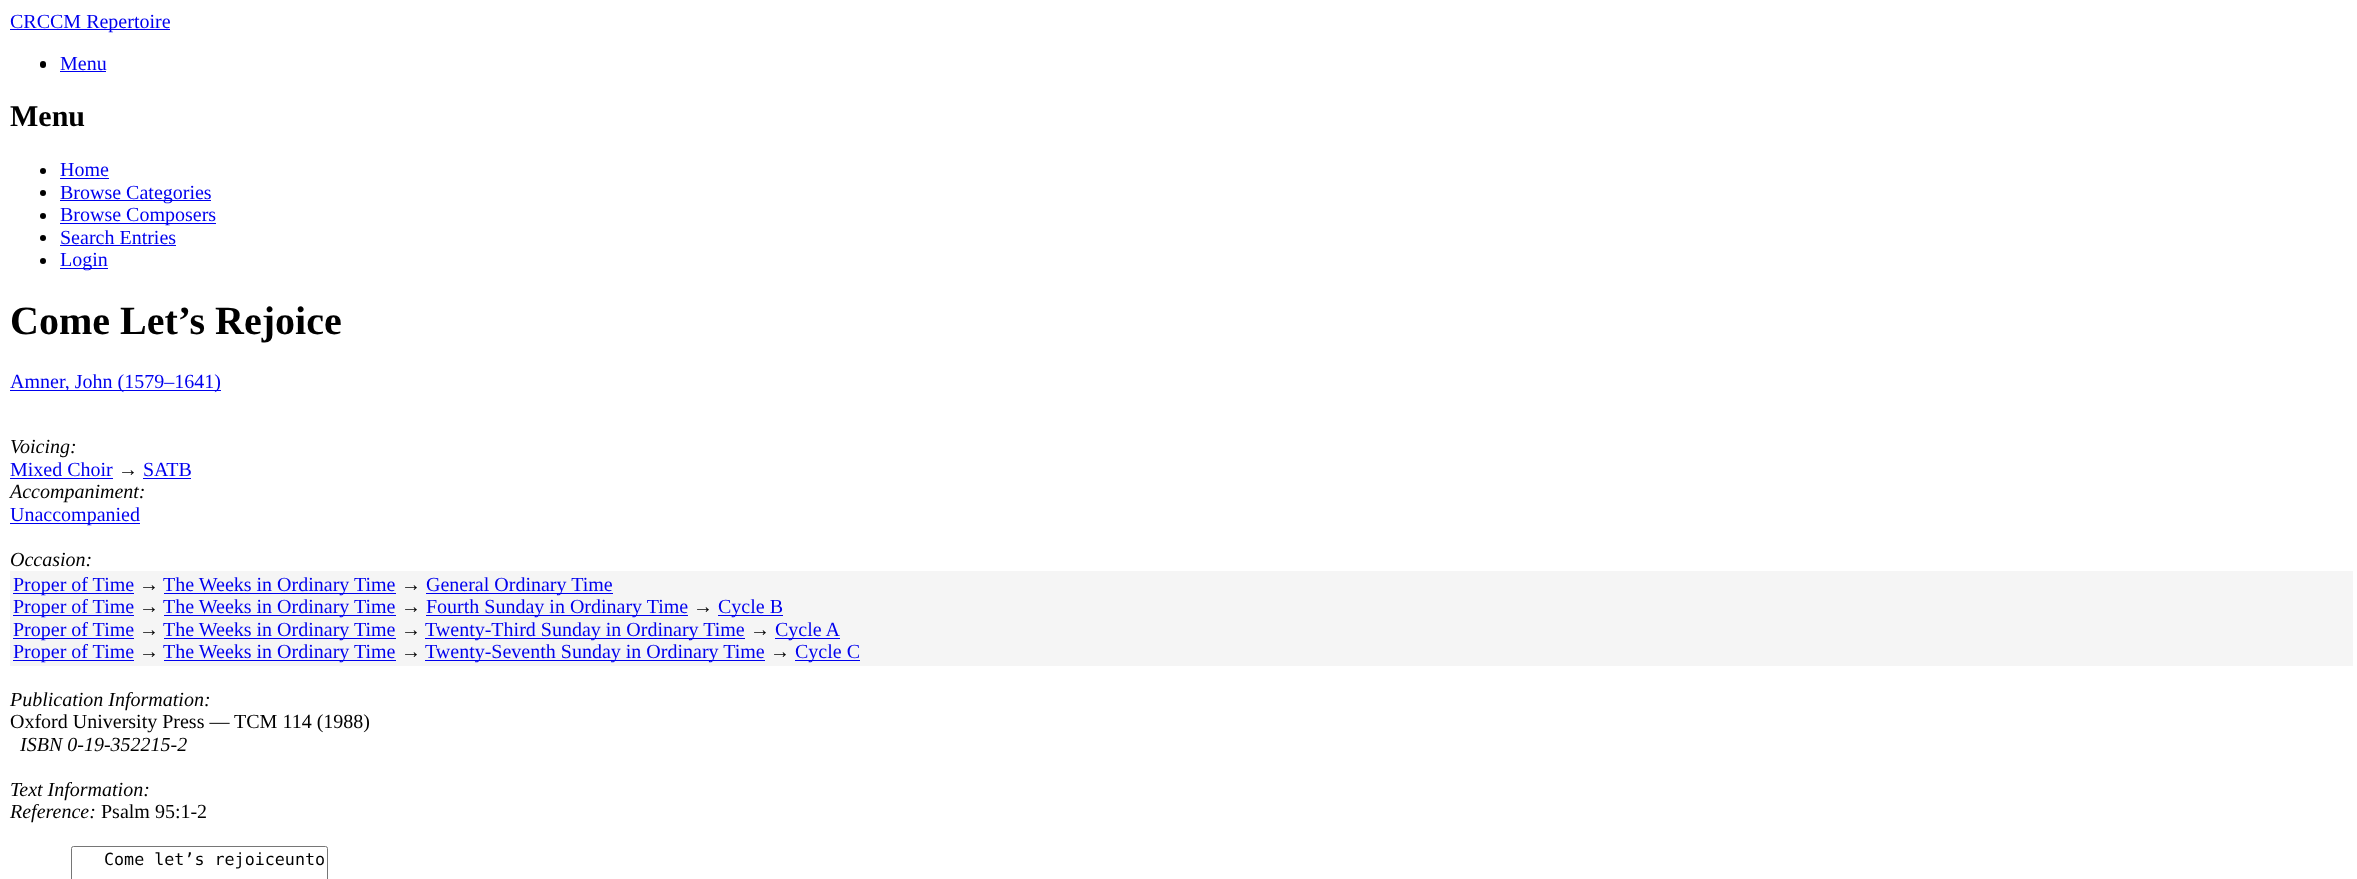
<svg xmlns="http://www.w3.org/2000/svg" width="2357" height="879" viewBox="0 0 2357 879">
  <rect width="100%" height="100%" fill="rgb(255,255,255)"/>
  <rect x="10" y="29" width="160" height="1" fill="rgb(0,0,238)"/>
  <text x="10" y="28" font-family="Liberation Serif" font-size="20" fill="rgb(0,0,238)">CRCCM Repertoire</text>
  <rect x="40" y="61" width="6" height="7" rx="3" fill="rgb(0,0,0)"/>
  <text x="60" y="70" font-family="Liberation Serif" font-size="20" fill="rgb(0,0,238)">Menu</text>
  <rect x="60" y="71" width="46" height="1" fill="rgb(0,0,238)"/>
  <text x="10" y="126" font-family="Liberation Serif" font-size="30" font-weight="bold" fill="rgb(0,0,0)">Menu</text>
  <circle cx="43" cy="171" r="3" fill="rgb(0,0,0)"/>
  <text x="60" y="176" font-family="Liberation Serif" font-size="20" fill="rgb(0,0,238)">Home</text>
  <rect x="60" y="178" width="49" height="1" fill="rgb(0,0,238)"/>
  <circle cx="43" cy="193" r="3" fill="rgb(0,0,0)"/>
  <rect x="60" y="200" width="151" height="1" fill="rgb(0,0,238)"/>
  <text x="60" y="199" font-family="Liberation Serif" font-size="20" fill="rgb(0,0,238)">Browse Categories</text>
  <circle cx="43" cy="216" r="3" fill="rgb(0,0,0)"/>
  <rect x="60" y="223" width="156" height="1" fill="rgb(0,0,238)"/>
  <text x="60" y="221" font-family="Liberation Serif" font-size="20" fill="rgb(0,0,238)">Browse Composers</text>
  <circle cx="43" cy="238" r="3" fill="rgb(0,0,0)"/>
  <text x="60" y="244" font-family="Liberation Serif" font-size="20" fill="rgb(0,0,238)">Search Entries</text>
  <rect x="60" y="245" width="116" height="1" fill="rgb(0,0,238)"/>
  <circle cx="43" cy="261" r="3" fill="rgb(0,0,0)"/>
  <rect x="60" y="268" width="48" height="1" fill="rgb(0,0,238)"/>
  <text x="60" y="266" font-family="Liberation Serif" font-size="20" fill="rgb(0,0,238)">Login</text>
  <text x="10" y="334" font-family="Liberation Serif" font-size="40" font-weight="bold" fill="rgb(0,0,0)">Come Let’s Rejoice</text>
  <rect x="10" y="390" width="211" height="1" fill="rgb(0,0,238)"/>
  <text x="10" y="388" font-family="Liberation Serif" font-size="20" fill="rgb(0,0,238)">Amner, John (1579–1641)</text>
  <text x="10" y="453" font-family="Liberation Serif" font-size="20" font-style="italic" fill="rgb(0,0,0)">Voicing:</text>
  <text x="10" y="476" font-family="Liberation Serif" font-size="20" fill="rgb(0,0,238)">Mixed Choir</text>
  <rect x="10" y="478" width="103" height="1" fill="rgb(0,0,238)"/>
  <text x="118" y="476" font-family="Liberation Serif" font-size="20" fill="rgb(0,0,0)">→</text>
  <text x="143" y="476" font-family="Liberation Serif" font-size="20" fill="rgb(0,0,238)">SATB</text>
  <rect x="143" y="478" width="48" height="1" fill="rgb(0,0,238)"/>
  <text x="10" y="498" font-family="Liberation Serif" font-size="20" font-style="italic" fill="rgb(0,0,0)">Accompaniment:</text>
  <rect x="10" y="523" width="130" height="1" fill="rgb(0,0,238)"/>
  <text x="10" y="521" font-family="Liberation Serif" font-size="20" fill="rgb(0,0,238)">Unaccompanied</text>
  <text x="10" y="566" font-family="Liberation Serif" font-size="20" font-style="italic" fill="rgb(0,0,0)">Occasion:</text>
  <rect x="10" y="571" width="2343" height="95" fill="rgb(245,245,245)"/>
  <rect x="13" y="593" width="121" height="1" fill="rgb(0,0,238)"/>
  <text x="13" y="591" font-family="Liberation Serif" font-size="20" fill="rgb(0,0,238)">Proper of Time</text>
  <text x="139" y="591" font-family="Liberation Serif" font-size="20" fill="rgb(0,0,0)">→</text>
  <rect x="164" y="593" width="232" height="1" fill="rgb(0,0,238)"/>
  <text x="163" y="591" font-family="Liberation Serif" font-size="20" fill="rgb(0,0,238)">The Weeks in Ordinary Time</text>
  <text x="401" y="591" font-family="Liberation Serif" font-size="20" fill="rgb(0,0,0)">→</text>
  <rect x="426" y="593" width="187" height="1" fill="rgb(0,0,238)"/>
  <text x="426" y="591" font-family="Liberation Serif" font-size="20" fill="rgb(0,0,238)">General Ordinary Time</text>
  <rect x="13" y="615" width="121" height="1" fill="rgb(0,0,238)"/>
  <text x="13" y="613" font-family="Liberation Serif" font-size="20" fill="rgb(0,0,238)">Proper of Time</text>
  <text x="139" y="613" font-family="Liberation Serif" font-size="20" fill="rgb(0,0,0)">→</text>
  <rect x="164" y="615" width="232" height="1" fill="rgb(0,0,238)"/>
  <text x="163" y="613" font-family="Liberation Serif" font-size="20" fill="rgb(0,0,238)">The Weeks in Ordinary Time</text>
  <text x="401" y="613" font-family="Liberation Serif" font-size="20" fill="rgb(0,0,0)">→</text>
  <rect x="426" y="615" width="262" height="1" fill="rgb(0,0,238)"/>
  <text x="426" y="613" font-family="Liberation Serif" font-size="20" fill="rgb(0,0,238)">Fourth Sunday in Ordinary Time</text>
  <text x="693" y="613" font-family="Liberation Serif" font-size="20" fill="rgb(0,0,0)">→</text>
  <rect x="718" y="615" width="65" height="1" fill="rgb(0,0,238)"/>
  <text x="718" y="613" font-family="Liberation Serif" font-size="20" fill="rgb(0,0,238)">Cycle B</text>
  <rect x="13" y="638" width="121" height="1" fill="rgb(0,0,238)"/>
  <text x="13" y="636" font-family="Liberation Serif" font-size="20" fill="rgb(0,0,238)">Proper of Time</text>
  <text x="139" y="636" font-family="Liberation Serif" font-size="20" fill="rgb(0,0,0)">→</text>
  <rect x="164" y="638" width="232" height="1" fill="rgb(0,0,238)"/>
  <text x="163" y="636" font-family="Liberation Serif" font-size="20" fill="rgb(0,0,238)">The Weeks in Ordinary Time</text>
  <text x="401" y="636" font-family="Liberation Serif" font-size="20" fill="rgb(0,0,0)">→</text>
  <rect x="425" y="638" width="320" height="1" fill="rgb(0,0,238)"/>
  <text x="425" y="636" font-family="Liberation Serif" font-size="20" fill="rgb(0,0,238)">Twenty-Third Sunday in Ordinary Time</text>
  <text x="750" y="636" font-family="Liberation Serif" font-size="20" fill="rgb(0,0,0)">→</text>
  <rect x="775" y="638" width="65" height="1" fill="rgb(0,0,238)"/>
  <text x="775" y="636" font-family="Liberation Serif" font-size="20" fill="rgb(0,0,238)">Cycle A</text>
  <rect x="13" y="660" width="121" height="1" fill="rgb(0,0,238)"/>
  <text x="13" y="658" font-family="Liberation Serif" font-size="20" fill="rgb(0,0,238)">Proper of Time</text>
  <text x="139" y="658" font-family="Liberation Serif" font-size="20" fill="rgb(0,0,0)">→</text>
  <rect x="164" y="660" width="232" height="1" fill="rgb(0,0,238)"/>
  <text x="163" y="658" font-family="Liberation Serif" font-size="20" fill="rgb(0,0,238)">The Weeks in Ordinary Time</text>
  <text x="401" y="658" font-family="Liberation Serif" font-size="20" fill="rgb(0,0,0)">→</text>
  <rect x="425" y="660" width="340" height="1" fill="rgb(0,0,238)"/>
  <text x="425" y="658" font-family="Liberation Serif" font-size="20" fill="rgb(0,0,238)">Twenty-Seventh Sunday in Ordinary Time</text>
  <text x="770" y="658" font-family="Liberation Serif" font-size="20" fill="rgb(0,0,0)">→</text>
  <rect x="795" y="660" width="65" height="1" fill="rgb(0,0,238)"/>
  <text x="795" y="658" font-family="Liberation Serif" font-size="20" fill="rgb(0,0,238)">Cycle C</text>
  <text x="10" y="706" font-family="Liberation Serif" font-size="20" font-style="italic" fill="rgb(0,0,0)">Publication Information:</text>
  <text x="10" y="728" font-family="Liberation Serif" font-size="20" fill="rgb(0,0,0)">Oxford University Press — TCM 114 (1988)</text>
  <g font-family="Liberation Serif" font-size="20" font-style="italic" fill="rgb(0,0,0)">
    <text x="20" y="751">ISBN 0-19-352215-2</text>
    <text>
      <tspan x="10" y="796">Text Information:</tspan>
      <tspan x="10" y="818">Reference:</tspan>
    </text>
  </g>
  <text x="101" y="818" font-family="Liberation Serif" font-size="20" fill="rgb(0,0,0)">Psalm 95:1-2</text>
  <rect x="71.5" y="846.5" width="256" height="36" rx="2" fill="none" stroke="rgb(118,118,118)"/>
  <text x="104" y="865" font-family="DejaVu Sans Mono" font-size="16.7" fill="rgb(0,0,0)">Come let’s rejoiceunto</text>
</svg>
